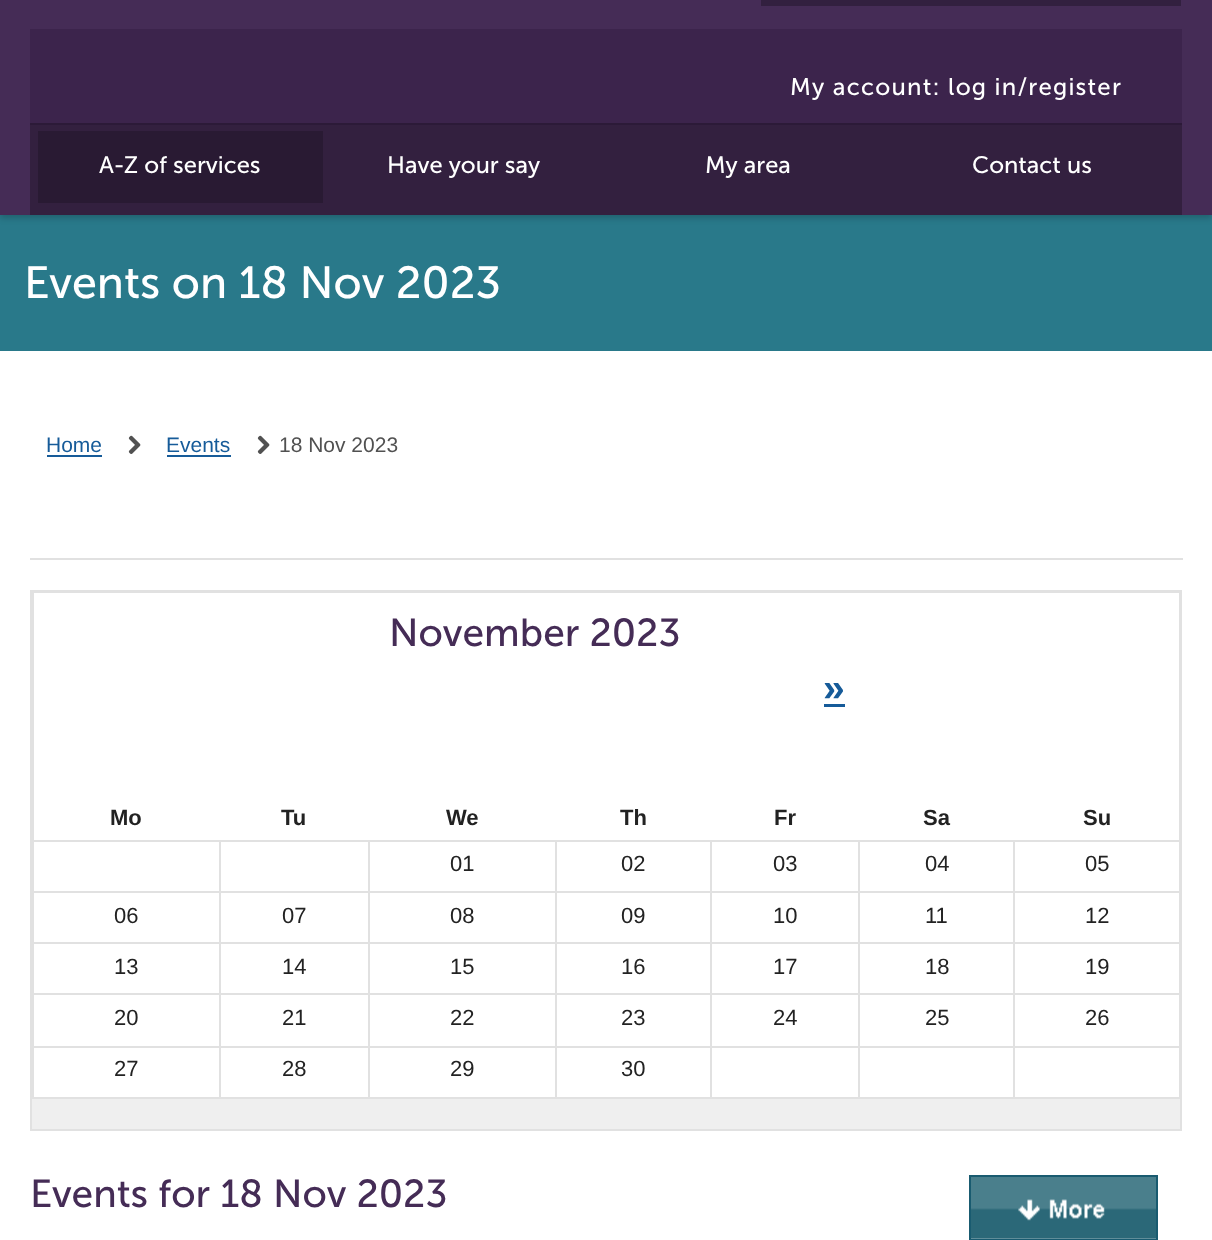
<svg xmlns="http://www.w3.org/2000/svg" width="1212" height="1240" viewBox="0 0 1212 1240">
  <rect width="100%" height="100%" fill="rgb(255,255,255)"/>
  <rect x="0" y="215" width="1212" height="136" fill="rgb(41,121,138)"/>
  <rect x="0" y="-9" width="1212" height="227" fill="rgba(0,0,0,0.2)" filter="blur(3px)"/>
  <rect x="0" y="0" width="1212" height="215" fill="rgb(69,44,86)"/>
  <rect x="764" y="-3" width="414" height="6" fill="none" stroke="rgb(50,32,63)" stroke-width="6"/>
  <rect x="30" y="29" width="1152" height="96" fill="rgb(60,36,76)"/>
  <text x="790" y="95" font-family="Museo Sans" font-size="24" letter-spacing="1.2" fill="rgb(255,255,255)">My account: log in/register</text>
  <rect x="30" y="123" width="1152" height="92" fill="rgba(0,0,0,0.26)"/>
  <rect x="38" y="131" width="285" height="72" fill="rgb(41,26,51)"/>
  <g font-family="Museo Sans" font-size="23.75" fill="rgb(255,255,255)">
    <text x="99" y="173">A-Z of services</text>
    <text x="387" y="173">Have your say</text>
    <text x="705" y="173">My area</text>
    <text x="972" y="173">Contact us</text>
  </g>
  <text x="24" y="298" font-family="Museo Sans" font-size="45" fill="rgb(255,255,255)">Events on 18 Nov 2023</text>
  <text x="46" y="452" font-family="Liberation Sans" font-size="21" fill="rgb(22,91,153)">Home</text>
  <rect x="47" y="455" width="55" height="2" fill="rgb(22,91,153)"/>
  <image x="128" y="435" width="13" height="19" href="pic1.png"/>
  <text x="166" y="452" font-family="Liberation Sans" font-size="21" fill="rgb(22,91,153)">Events</text>
  <rect x="167" y="455" width="64" height="2" fill="rgb(22,91,153)"/>
  <image x="257" y="435" width="13" height="19" href="pic1.png"/>
  <text x="279" y="452" font-family="Liberation Sans" font-size="21" fill="rgb(81,81,81)">18 Nov 2023</text>
  <rect x="30" y="558" width="1153" height="2" fill="rgb(225,225,225)"/>
  <rect x="32" y="1099" width="1148" height="30" fill="rgb(239,239,239)"/>
  <rect x="31" y="591" width="1150" height="539" fill="none" stroke="rgb(225,225,225)" stroke-width="2"/>
  <rect x="32" y="592" width="1149" height="1" fill="rgb(225,225,225)"/>
  <rect x="1179" y="591" width="1" height="507" fill="rgb(225,225,225)"/>
  <rect x="32" y="1097" width="1149" height="2" fill="rgb(225,225,225)"/>
  <rect x="32" y="591" width="2" height="507" fill="rgb(225,225,225)"/>
  <text x="389" y="646" font-family="Museo Sans" font-size="39" fill="rgb(69,44,86)">November 2023</text>
  <text x="823" y="701" font-family="Liberation Sans" font-size="39" font-weight="bold" fill="rgb(22,91,153)">»</text>
  <rect x="824" y="704" width="21" height="3" fill="rgb(22,91,153)"/>
  <g font-family="Liberation Sans" font-size="22" font-weight="bold" fill="rgb(34,34,34)">
    <text x="110" y="825">Mo</text>
    <text x="281" y="825">Tu</text>
    <text x="446" y="825">We</text>
    <text x="620" y="825">Th</text>
    <text x="774" y="825">Fr</text>
    <text x="923" y="825">Sa</text>
    <text x="1083" y="825">Su</text>
  </g>
  <rect x="1013" y="840" width="168" height="2" fill="rgb(225,225,225)"/>
  <rect x="1013" y="891" width="168" height="2" fill="rgb(225,225,225)"/>
  <rect x="1013" y="942" width="168" height="2" fill="rgb(225,225,225)"/>
  <rect x="1013" y="993" width="168" height="2" fill="rgb(225,225,225)"/>
  <rect x="1013" y="1046" width="168" height="2" fill="rgb(225,225,225)"/>
  <rect x="1013" y="1046" width="2" height="52" fill="rgb(225,225,225)"/>
  <rect x="858" y="1046" width="156" height="2" fill="rgb(225,225,225)"/>
  <rect x="1013" y="993" width="2" height="54" fill="rgb(225,225,225)"/>
  <rect x="858" y="993" width="156" height="2" fill="rgb(225,225,225)"/>
  <rect x="1013" y="942" width="2" height="53" fill="rgb(225,225,225)"/>
  <rect x="858" y="942" width="156" height="2" fill="rgb(225,225,225)"/>
  <rect x="1013" y="891" width="2" height="53" fill="rgb(225,225,225)"/>
  <rect x="858" y="891" width="156" height="2" fill="rgb(225,225,225)"/>
  <rect x="1013" y="840" width="2" height="53" fill="rgb(225,225,225)"/>
  <rect x="858" y="840" width="156" height="2" fill="rgb(225,225,225)"/>
  <rect x="858" y="1046" width="2" height="52" fill="rgb(225,225,225)"/>
  <rect x="710" y="1046" width="150" height="2" fill="rgb(225,225,225)"/>
  <rect x="858" y="993" width="2" height="54" fill="rgb(225,225,225)"/>
  <rect x="710" y="993" width="150" height="2" fill="rgb(225,225,225)"/>
  <rect x="858" y="942" width="2" height="53" fill="rgb(225,225,225)"/>
  <rect x="710" y="942" width="150" height="2" fill="rgb(225,225,225)"/>
  <rect x="858" y="891" width="2" height="53" fill="rgb(225,225,225)"/>
  <rect x="710" y="891" width="150" height="2" fill="rgb(225,225,225)"/>
  <rect x="858" y="840" width="2" height="53" fill="rgb(225,225,225)"/>
  <rect x="710" y="840" width="150" height="2" fill="rgb(225,225,225)"/>
  <rect x="710" y="1046" width="2" height="52" fill="rgb(225,225,225)"/>
  <rect x="555" y="1046" width="156" height="2" fill="rgb(225,225,225)"/>
  <rect x="710" y="993" width="2" height="54" fill="rgb(225,225,225)"/>
  <rect x="555" y="993" width="156" height="2" fill="rgb(225,225,225)"/>
  <rect x="710" y="942" width="2" height="53" fill="rgb(225,225,225)"/>
  <rect x="555" y="942" width="156" height="2" fill="rgb(225,225,225)"/>
  <rect x="710" y="891" width="2" height="53" fill="rgb(225,225,225)"/>
  <rect x="555" y="891" width="156" height="2" fill="rgb(225,225,225)"/>
  <rect x="710" y="840" width="2" height="53" fill="rgb(225,225,225)"/>
  <rect x="555" y="840" width="156" height="2" fill="rgb(225,225,225)"/>
  <rect x="555" y="1046" width="2" height="52" fill="rgb(225,225,225)"/>
  <rect x="368" y="1046" width="189" height="2" fill="rgb(225,225,225)"/>
  <rect x="555" y="993" width="2" height="54" fill="rgb(225,225,225)"/>
  <rect x="368" y="993" width="189" height="2" fill="rgb(225,225,225)"/>
  <rect x="555" y="942" width="2" height="53" fill="rgb(225,225,225)"/>
  <rect x="368" y="942" width="189" height="2" fill="rgb(225,225,225)"/>
  <rect x="555" y="891" width="2" height="53" fill="rgb(225,225,225)"/>
  <rect x="368" y="891" width="189" height="2" fill="rgb(225,225,225)"/>
  <rect x="555" y="840" width="2" height="53" fill="rgb(225,225,225)"/>
  <rect x="368" y="840" width="189" height="2" fill="rgb(225,225,225)"/>
  <rect x="368" y="1046" width="2" height="52" fill="rgb(225,225,225)"/>
  <rect x="219" y="1046" width="150" height="2" fill="rgb(225,225,225)"/>
  <rect x="368" y="993" width="2" height="54" fill="rgb(225,225,225)"/>
  <rect x="219" y="993" width="150" height="2" fill="rgb(225,225,225)"/>
  <rect x="368" y="942" width="2" height="53" fill="rgb(225,225,225)"/>
  <rect x="219" y="942" width="150" height="2" fill="rgb(225,225,225)"/>
  <rect x="368" y="891" width="2" height="53" fill="rgb(225,225,225)"/>
  <rect x="219" y="891" width="150" height="2" fill="rgb(225,225,225)"/>
  <rect x="368" y="840" width="2" height="53" fill="rgb(225,225,225)"/>
  <rect x="219" y="840" width="150" height="2" fill="rgb(225,225,225)"/>
  <rect x="219" y="1046" width="2" height="52" fill="rgb(225,225,225)"/>
  <rect x="32" y="1046" width="189" height="2" fill="rgb(225,225,225)"/>
  <rect x="219" y="993" width="2" height="54" fill="rgb(225,225,225)"/>
  <rect x="32" y="993" width="189" height="2" fill="rgb(225,225,225)"/>
  <rect x="219" y="942" width="2" height="53" fill="rgb(225,225,225)"/>
  <rect x="32" y="942" width="189" height="2" fill="rgb(225,225,225)"/>
  <rect x="219" y="891" width="2" height="53" fill="rgb(225,225,225)"/>
  <rect x="32" y="891" width="189" height="2" fill="rgb(225,225,225)"/>
  <rect x="219" y="840" width="2" height="53" fill="rgb(225,225,225)"/>
  <rect x="32" y="840" width="189" height="2" fill="rgb(225,225,225)"/>
  <g font-family="Liberation Sans" font-size="22" fill="rgb(34,34,34)">
    <text x="450" y="871">01</text>
    <text x="621" y="871">02</text>
    <text x="773" y="871">03</text>
    <text x="925" y="871">04</text>
    <text x="1085" y="871">05</text>
    <text x="114" y="923">06</text>
    <text x="282" y="923">07</text>
    <text x="450" y="923">08</text>
    <text x="621" y="923">09</text>
    <text x="773" y="923">10</text>
    <text x="925" y="923">11</text>
    <text x="1085" y="923">12</text>
    <text x="114" y="974">13</text>
    <text x="282" y="974">14</text>
    <text x="450" y="974">15</text>
    <text x="621" y="974">16</text>
    <text x="773" y="974">17</text>
    <text x="925" y="974">18</text>
    <text x="1085" y="974">19</text>
    <text x="114" y="1025">20</text>
    <text x="282" y="1025">21</text>
    <text x="450" y="1025">22</text>
    <text x="621" y="1025">23</text>
    <text x="773" y="1025">24</text>
    <text x="925" y="1025">25</text>
    <text x="1085" y="1025">26</text>
    <text x="114" y="1076">27</text>
    <text x="282" y="1076">28</text>
    <text x="450" y="1076">29</text>
    <text x="621" y="1076">30</text>
  </g>
  <text x="30" y="1207" font-family="Museo Sans" font-size="39" fill="rgb(69,44,86)">Events for 18 Nov 2023</text>
  <image x="971" y="1177" width="185" height="62" href="pic2.png"/>
  <rect x="970" y="1176" width="187" height="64" fill="none" stroke="rgb(25,91,112)" stroke-width="2"/>
</svg>
